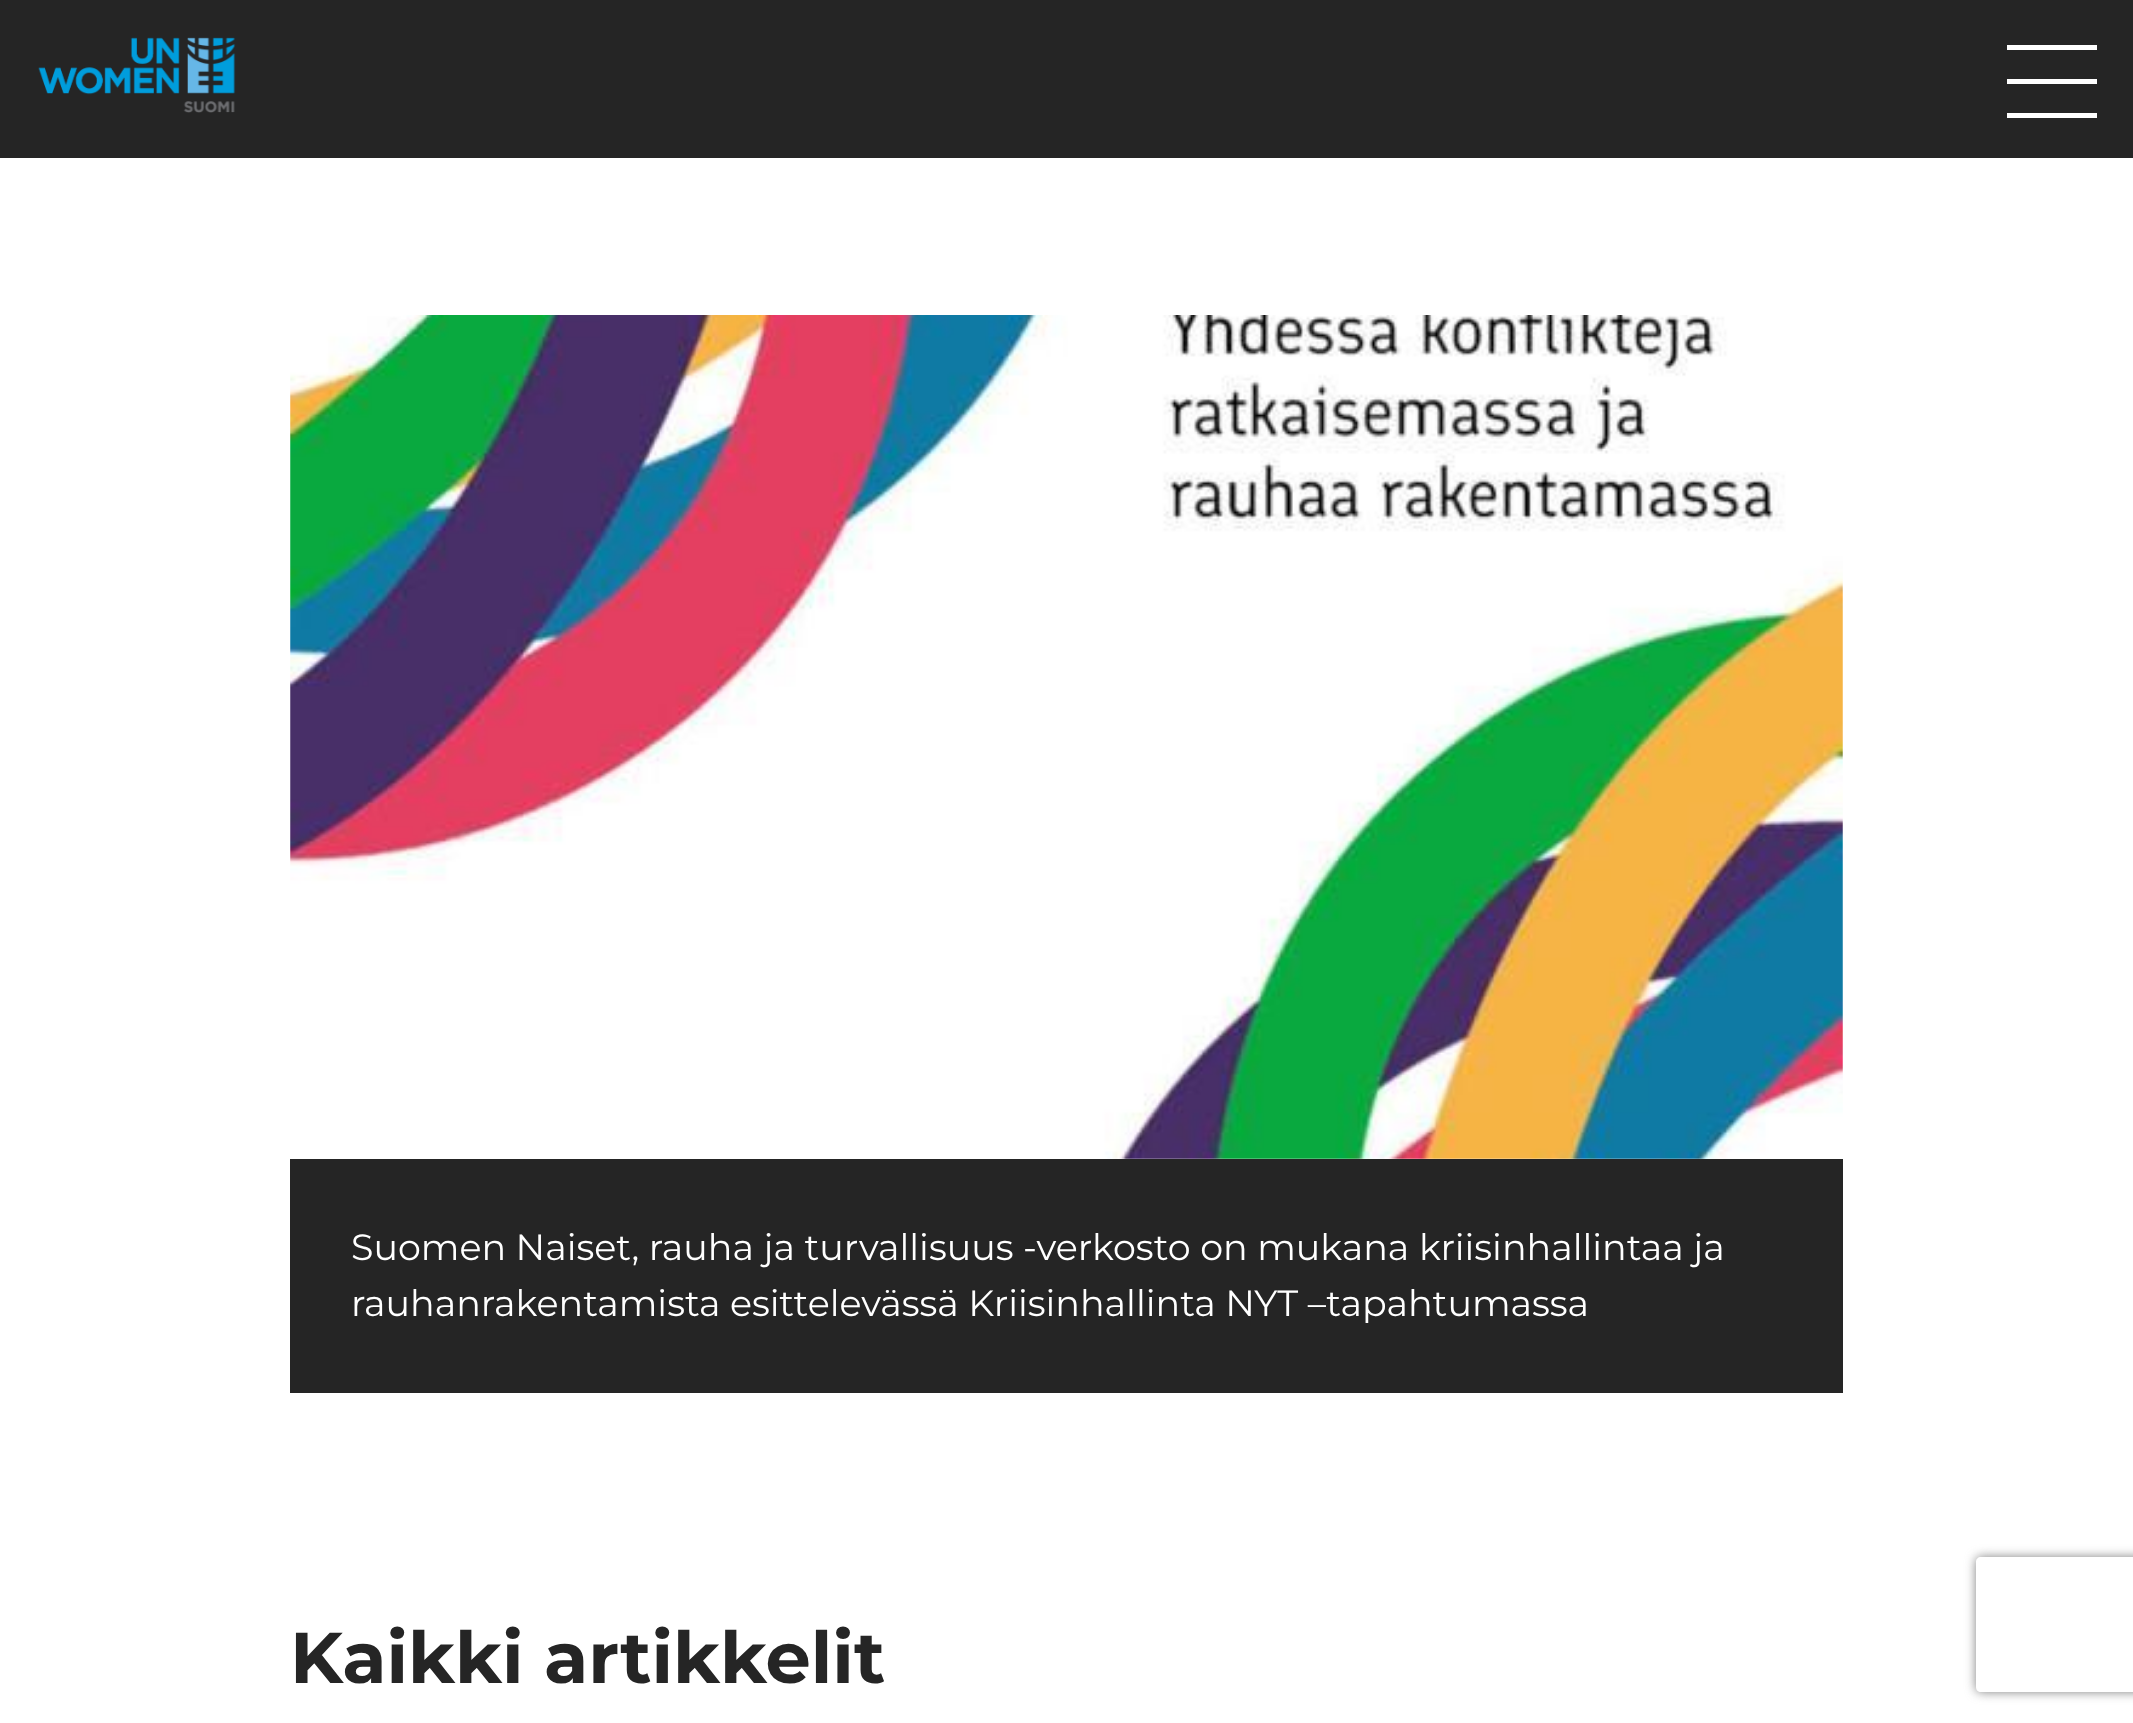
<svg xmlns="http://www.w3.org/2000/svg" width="2133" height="1723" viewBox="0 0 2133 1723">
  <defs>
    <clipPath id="clip1"><path d="M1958 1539H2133V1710H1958ZM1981 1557H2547C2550 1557 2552 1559 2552 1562V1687C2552 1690 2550 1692 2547 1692H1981C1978 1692 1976 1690 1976 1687V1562C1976 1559 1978 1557 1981 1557Z" clip-rule="evenodd"/></clipPath>
  </defs>
  <rect width="100%" height="100%" fill="rgb(255,255,255)"/>
  <rect x="0" y="0" width="2133" height="158" fill="rgb(37,37,37)"/>
  <image x="38" y="37" width="198" height="76" href="pic1.png"/>
  <rect x="2007" y="79" width="90" height="5" fill="rgb(255,255,255)"/>
  <rect x="2007" y="45" width="90" height="5" fill="rgb(255,255,255)"/>
  <rect x="2007" y="113" width="90" height="5" fill="rgb(255,255,255)"/>
  <image x="290" y="315" width="1553" height="844" href="pic2.png"/>
  <rect x="290" y="1159" width="1553" height="234" fill="rgb(37,37,37)"/>
  <g font-family="Montserrat" font-size="36.45" fill="rgb(255,255,255)">
    <text>
      <tspan x="351" y="1260">Suomen Naiset, rauha ja turvallisuus -verkosto on mukana kriisinhallintaa ja</tspan>
      <tspan x="351" y="1316">rauhanrakentamista esittelevässä Kriisinhallinta NYT –tapahtumassa</tspan>
    </text>
  </g>
  <text x="290" y="1683" font-family="Montserrat" font-size="71.75" font-weight="bold" fill="rgb(37,37,37)">Kaikki artikkelit</text>
  <g clip-path="url(#clip1)">
    <rect x="1976" y="1557" width="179" height="135" rx="5" fill="rgb(128,128,128)" filter="blur(5.5px)"/>
  </g>
</svg>
